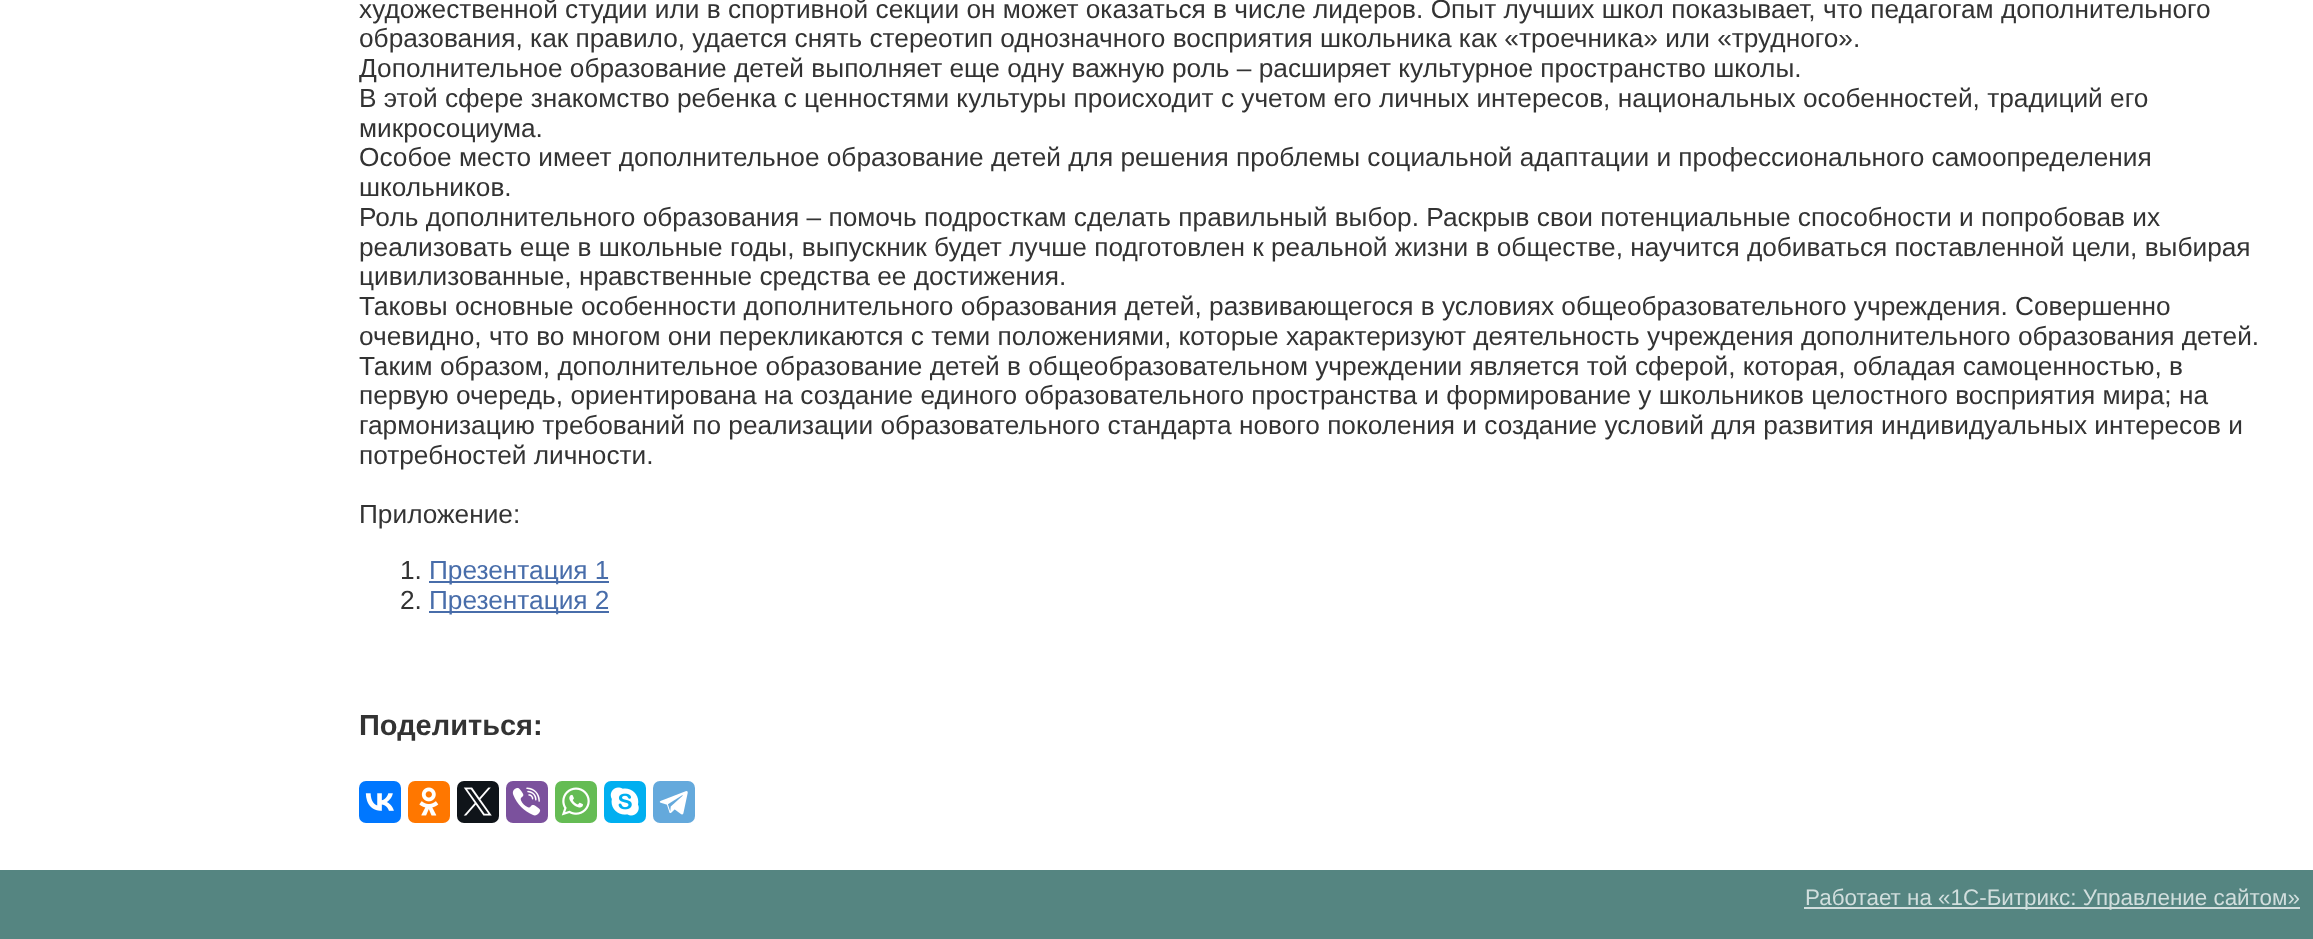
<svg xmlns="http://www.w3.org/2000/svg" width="2313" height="939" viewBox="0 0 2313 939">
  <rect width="100%" height="100%" fill="rgb(255,255,255)"/>
  <g font-family="Liberation Sans" font-size="26.25" fill="rgb(51,51,51)">
    <text>
      <tspan x="359" y="18">художественной студии или в спортивной секции он может оказаться в числе лидеров. Опыт лучших школ показывает, что педагогам дополнительного</tspan>
      <tspan x="359" y="47">образования, как правило, удается снять стереотип однозначного восприятия школьника как «троечника» или «трудного».</tspan>
      <tspan x="359" y="77">Дополнительное образование детей выполняет еще одну важную роль – расширяет культурное пространство школы.</tspan>
      <tspan x="359" y="107">В этой сфере знакомство ребенка с ценностями культуры происходит с учетом его личных интересов, национальных особенностей, традиций его</tspan>
      <tspan x="359" y="137">микросоциума.</tspan>
      <tspan x="359" y="166">Особое место имеет дополнительное образование детей для решения проблемы социальной адаптации и профессионального самоопределения</tspan>
      <tspan x="359" y="196">школьников.</tspan>
      <tspan x="359" y="226">Роль дополнительного образования – помочь подросткам сделать правильный выбор. Раскрыв свои потенциальные способности и попробовав их</tspan>
      <tspan x="359" y="256">реализовать еще в школьные годы, выпускник будет лучше подготовлен к реальной жизни в обществе, научится добиваться поставленной цели, выбирая</tspan>
      <tspan x="359" y="285">цивилизованные, нравственные средства ее достижения.</tspan>
      <tspan x="359" y="315">Таковы основные особенности дополнительного образования детей, развивающегося в условиях общеобразовательного учреждения. Совершенно</tspan>
      <tspan x="359" y="345">очевидно, что во многом они перекликаются с теми положениями, которые характеризуют деятельность учреждения дополнительного образования детей.</tspan>
      <tspan x="359" y="375">Таким образом, дополнительное образование детей в общеобразовательном учреждении является той сферой, которая, обладая самоценностью, в</tspan>
      <tspan x="359" y="404">первую очередь, ориентирована на создание единого образовательного пространства и формирование у школьников целостного восприятия мира; на</tspan>
      <tspan x="359" y="434">гармонизацию требований по реализации образовательного стандарта нового поколения и создание условий для развития индивидуальных интересов и</tspan>
      <tspan x="359" y="464">потребностей личности.</tspan>
    </text>
    <text x="359" y="523">Приложение:</text>
    <text x="400" y="579">1.</text>
  </g>
  <rect x="429" y="581" width="180" height="2" fill="rgb(72,109,170)"/>
  <text x="429" y="579" font-family="Liberation Sans" font-size="26.25" fill="rgb(72,109,170)">Презентация 1</text>
  <text x="400" y="609" font-family="Liberation Sans" font-size="26.25" fill="rgb(51,51,51)">2.</text>
  <rect x="429" y="611" width="180" height="2" fill="rgb(72,109,170)"/>
  <text x="429" y="609" font-family="Liberation Sans" font-size="26.25" fill="rgb(72,109,170)">Презентация 2</text>
  <text x="359" y="735" font-family="Liberation Sans" font-size="29" font-weight="bold" fill="rgb(51,51,51)">Поделиться:</text>
  <rect x="359" y="781" width="42" height="42" rx="7" fill="rgb(0,119,255)"/>
  <image x="365" y="793" width="29" height="18" href="pic1.png"/>
  <rect x="408" y="781" width="42" height="42" rx="7" fill="rgb(255,119,0)"/>
  <image x="419" y="787" width="20" height="29" href="pic2.png"/>
  <rect x="457" y="781" width="42" height="42" rx="7" fill="rgb(15,20,25)"/>
  <image x="463" y="787" width="29" height="29" href="pic3.png"/>
  <rect x="506" y="781" width="42" height="42" rx="7" fill="rgb(123,81,157)"/>
  <image x="512" y="787" width="29" height="29" href="pic4.png"/>
  <rect x="555" y="781" width="42" height="42" rx="7" fill="rgb(101,188,84)"/>
  <image x="561" y="787" width="29" height="29" href="pic5.png"/>
  <rect x="604" y="781" width="42" height="42" rx="7" fill="rgb(0,175,240)"/>
  <image x="610" y="787" width="29" height="29" href="pic6.png"/>
  <rect x="653" y="781" width="42" height="42" rx="7" fill="rgb(100,169,220)"/>
  <image x="659" y="791" width="29" height="24" href="pic7.png"/>
  <rect x="0" y="870" width="2313" height="69" fill="rgb(85,133,129)"/>
  <rect x="1804" y="907" width="496" height="2" fill="rgb(209,222,221)"/>
  <text x="1805" y="905" font-family="Liberation Sans" font-size="22.4" fill="rgb(209,222,221)">Работает на «1С-Битрикс: Управление сайтом»</text>
</svg>
